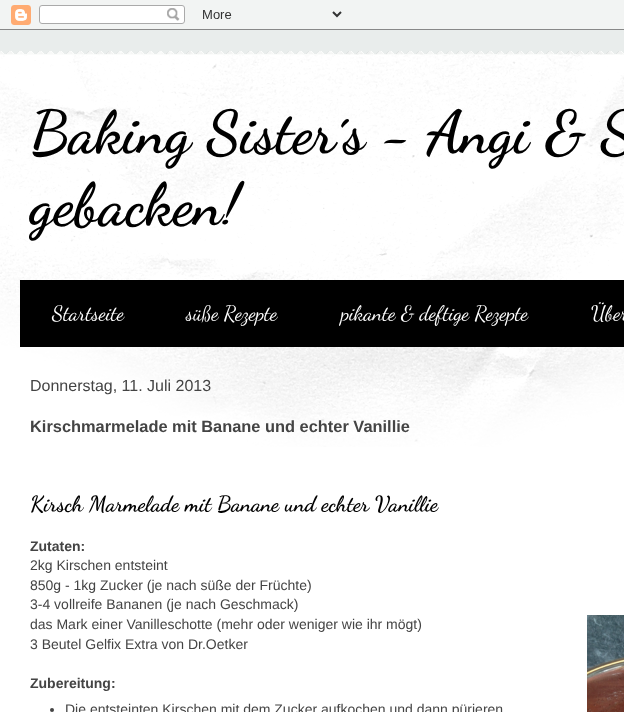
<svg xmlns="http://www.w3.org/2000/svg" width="624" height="712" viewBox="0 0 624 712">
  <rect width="100%" height="100%" fill="rgb(233,237,236)"/>
  <image x="0" y="0" width="624" height="30" href="pic1.png"/>
  <image x="0" y="51" width="624" height="4" href="pic2.png"/>
  <rect x="0" y="55" width="624" height="657" fill="rgb(255,255,255)"/>
  <image x="0" y="55" width="624" height="392" href="pic3.png"/>
  <g font-family="Dancing Script" font-size="60" font-weight="bold" fill="rgb(0,0,0)">
    <text>
      <tspan x="30" y="152">Baking Sister´s - Angi &amp; S</tspan>
      <tspan x="30" y="224">gebacken!</tspan>
    </text>
  </g>
  <rect x="20" y="280" width="604" height="67" fill="rgb(0,0,0)"/>
  <g font-family="Dancing Script" font-size="21" fill="rgb(255,255,255)">
    <text x="52" y="320">Startseite</text>
    <text x="186" y="320">süße Rezepte</text>
    <text x="341" y="320">pikante &amp; deftige Rezepte</text>
    <text x="591" y="320">Über</text>
  </g>
  <text x="30" y="391" font-family="Liberation Sans" font-size="16" fill="rgb(68,68,68)">Donnerstag, 11. Juli 2013</text>
  <text x="30" y="432" font-family="Liberation Sans" font-size="16.4" font-weight="bold" fill="rgb(68,68,68)">Kirschmarmelade mit Banane und echter Vanillie</text>
  <text x="30" y="511" font-family="Dancing Script" font-size="22" font-weight="bold" fill="rgb(0,0,0)">Kirsch Marmelade mit Banane und echter Vanillie</text>
  <text x="30" y="551" font-family="Liberation Sans" font-size="14" font-weight="bold" fill="rgb(68,68,68)">Zutaten:</text>
  <g font-family="Liberation Sans" font-size="14" fill="rgb(68,68,68)">
    <text>
      <tspan x="30" y="570">2kg Kirschen entsteint</tspan>
      <tspan x="30" y="590">850g - 1kg Zucker (je nach süße der Früchte)</tspan>
      <tspan x="30" y="609">3-4 vollreife Bananen (je nach Geschmack)</tspan>
      <tspan x="30" y="629">das Mark einer Vanilleschotte (mehr oder weniger wie ihr mögt)</tspan>
    </text>
  </g>
  <image x="587" y="615" width="37" height="97" href="pic4.png"/>
  <text x="30" y="649" font-family="Liberation Sans" font-size="14" fill="rgb(68,68,68)">3 Beutel Gelfix Extra von Dr.Oetker</text>
  <text x="30" y="688" font-family="Liberation Sans" font-size="14" font-weight="bold" fill="rgb(68,68,68)">Zubereitung:</text>
  <circle cx="52" cy="710" r="2" fill="rgb(68,68,68)"/>
  <text x="65" y="714" font-family="Liberation Sans" font-size="14" fill="rgb(68,68,68)">Die entsteinten Kirschen mit dem Zucker aufkochen und dann pürieren</text>
</svg>
